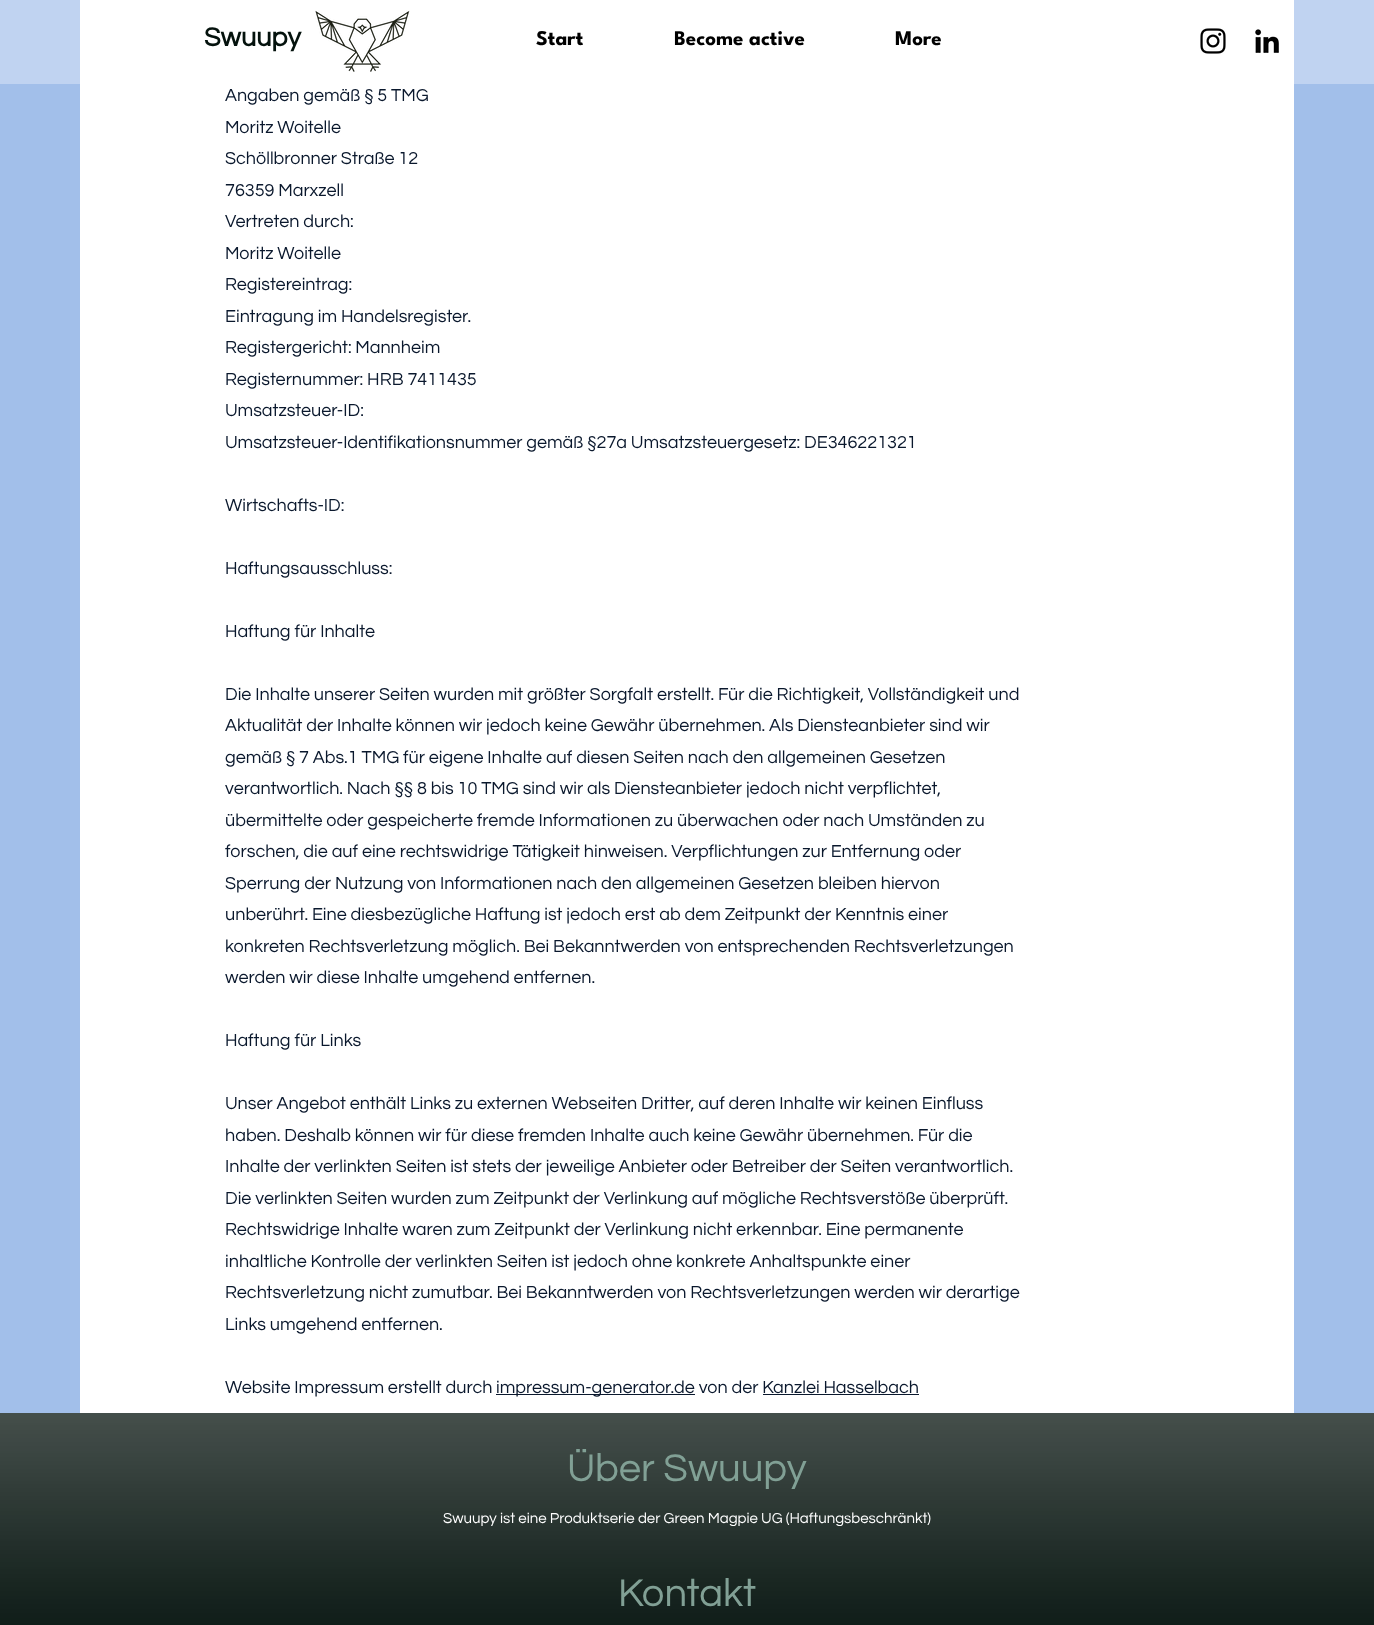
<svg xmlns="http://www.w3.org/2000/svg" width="1374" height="1625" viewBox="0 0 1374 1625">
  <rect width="100%" height="100%" fill="rgb(162,191,234)"/>
  <rect x="0" y="0" width="1374" height="84" fill="rgb(192,211,241)"/>
  <rect x="80" y="0" width="1214" height="1413" fill="rgb(255,255,255)"/>
  <text x="204" y="46" font-family="Questrial" font-size="27" font-weight="bold" fill="rgb(4,18,13)">Swuupy</text>
  <image x="315" y="10" width="95" height="62" href="pic1.png"/>
  <g font-family="League Spartan" font-size="21" font-weight="bold" fill="rgb(0,0,0)">
    <text x="536" y="45">Start</text>
    <text x="674" y="45">Become active</text>
    <text x="895" y="45">More</text>
  </g>
  <image x="1200" y="28" width="26" height="26" href="pic2.png"/>
  <image x="1255" y="29" width="24" height="24" href="pic3.png"/>
  <g font-family="Questrial" font-size="18" fill="rgb(10,24,45)">
    <text>
      <tspan x="225" y="101">Angaben gemäß § 5 TMG</tspan>
      <tspan x="225" y="133">Moritz Woitelle</tspan>
      <tspan x="225" y="164">Schöllbronner Straße 12</tspan>
      <tspan x="225" y="196">76359 Marxzell</tspan>
      <tspan x="225" y="227">Vertreten durch:</tspan>
      <tspan x="225" y="259">Moritz Woitelle</tspan>
      <tspan x="225" y="290">Registereintrag:</tspan>
      <tspan x="225" y="322">Eintragung im Handelsregister.</tspan>
      <tspan x="225" y="353">Registergericht: Mannheim</tspan>
      <tspan x="225" y="385">Registernummer: HRB 7411435</tspan>
      <tspan x="225" y="416">Umsatzsteuer-ID:</tspan>
      <tspan x="225" y="448">Umsatzsteuer-Identifikationsnummer gemäß §27a Umsatzsteuergesetz: DE346221321</tspan>
    </text>
    <text x="225" y="511">Wirtschafts-ID:</text>
    <text x="225" y="574">Haftungsausschluss:</text>
    <text x="225" y="637">Haftung für Inhalte</text>
    <text>
      <tspan x="225" y="700">Die Inhalte unserer Seiten wurden mit größter Sorgfalt erstellt. Für die Richtigkeit, Vollständigkeit und</tspan>
      <tspan x="225" y="731">Aktualität der Inhalte können wir jedoch keine Gewähr übernehmen. Als Diensteanbieter sind wir</tspan>
      <tspan x="225" y="763">gemäß § 7 Abs.1 TMG für eigene Inhalte auf diesen Seiten nach den allgemeinen Gesetzen</tspan>
      <tspan x="225" y="794">verantwortlich. Nach §§ 8 bis 10 TMG sind wir als Diensteanbieter jedoch nicht verpflichtet,</tspan>
      <tspan x="225" y="826">übermittelte oder gespeicherte fremde Informationen zu überwachen oder nach Umständen zu</tspan>
      <tspan x="225" y="857">forschen, die auf eine rechtswidrige Tätigkeit hinweisen. Verpflichtungen zur Entfernung oder</tspan>
      <tspan x="225" y="889">Sperrung der Nutzung von Informationen nach den allgemeinen Gesetzen bleiben hiervon</tspan>
      <tspan x="225" y="920">unberührt. Eine diesbezügliche Haftung ist jedoch erst ab dem Zeitpunkt der Kenntnis einer</tspan>
      <tspan x="225" y="952">konkreten Rechtsverletzung möglich. Bei Bekanntwerden von entsprechenden Rechtsverletzungen</tspan>
      <tspan x="225" y="983">werden wir diese Inhalte umgehend entfernen.</tspan>
    </text>
    <text x="225" y="1046">Haftung für Links</text>
    <text>
      <tspan x="225" y="1109">Unser Angebot enthält Links zu externen Webseiten Dritter, auf deren Inhalte wir keinen Einfluss</tspan>
      <tspan x="225" y="1141">haben. Deshalb können wir für diese fremden Inhalte auch keine Gewähr übernehmen. Für die</tspan>
      <tspan x="225" y="1172">Inhalte der verlinkten Seiten ist stets der jeweilige Anbieter oder Betreiber der Seiten verantwortlich.</tspan>
      <tspan x="225" y="1204">Die verlinkten Seiten wurden zum Zeitpunkt der Verlinkung auf mögliche Rechtsverstöße überprüft.</tspan>
      <tspan x="225" y="1235">Rechtswidrige Inhalte waren zum Zeitpunkt der Verlinkung nicht erkennbar. Eine permanente</tspan>
      <tspan x="225" y="1267">inhaltliche Kontrolle der verlinkten Seiten ist jedoch ohne konkrete Anhaltspunkte einer</tspan>
      <tspan x="225" y="1298">Rechtsverletzung nicht zumutbar. Bei Bekanntwerden von Rechtsverletzungen werden wir derartige</tspan>
      <tspan x="225" y="1330">Links umgehend entfernen.</tspan>
    </text>
    <text x="225" y="1393">Website Impressum erstellt durch</text>
  </g>
  <rect x="496" y="1394" width="199" height="1" fill="rgb(10,24,45)"/>
  <text x="496" y="1393" font-family="Questrial" font-size="18" fill="rgb(10,24,45)">impressum-generator.de von der Kanzlei Hasselbach</text>
  <rect x="763" y="1394" width="156" height="1" fill="rgb(10,24,45)"/>
  <rect x="0" y="1413" width="1374" height="212" fill="rgb(4,18,13)"/>
  <image x="0" y="1413" width="1374" height="212" href="pic4.png"/>
  <text x="567" y="1481" font-family="Questrial" font-size="40" fill="rgb(129,160,149)">Über Swuupy</text>
  <text x="443" y="1523" font-family="Questrial" font-size="15" fill="rgb(255,255,255)">Swuupy ist eine Produktserie der Green Magpie UG (Haftungsbeschränkt)</text>
  <text x="618" y="1606" font-family="Questrial" font-size="40" fill="rgb(129,160,149)">Kontakt</text>
</svg>
